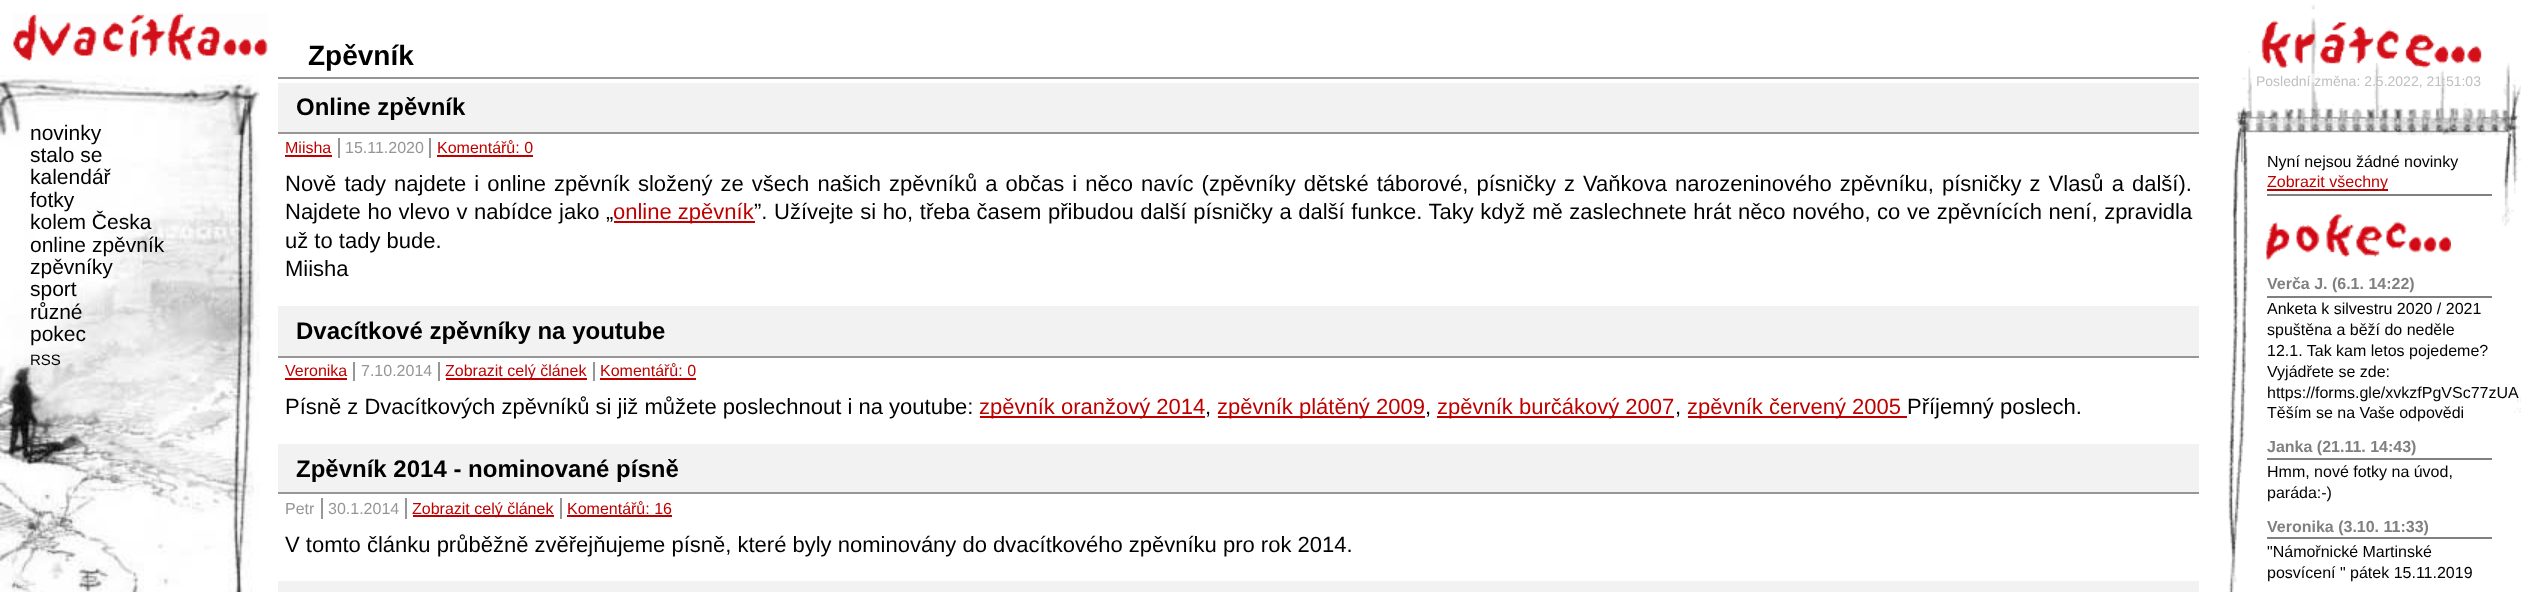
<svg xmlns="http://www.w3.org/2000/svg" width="2521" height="592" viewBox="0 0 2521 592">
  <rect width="100%" height="100%" fill="rgb(255,255,255)"/>
  <rect x="278" y="77" width="1921" height="2" fill="rgb(150,150,150)"/>
  <text x="308" y="65" font-family="Liberation Sans" font-size="28" font-weight="bold" fill="rgb(0,0,0)">Zpěvník</text>
  <rect x="278" y="83" width="1921" height="49" fill="rgb(242,242,242)"/>
  <rect x="278" y="132" width="1921" height="2" fill="rgb(150,150,150)"/>
  <text x="296" y="115" font-family="Liberation Sans" font-size="24" font-weight="bold" fill="rgb(0,0,0)">Online zpěvník</text>
  <text x="285" y="153" font-family="Liberation Sans" font-size="16" fill="rgb(191,0,0)">Miisha</text>
  <rect x="285" y="155" width="47" height="2" fill="rgb(191,0,0)"/>
  <rect x="338" y="138" width="2" height="20" fill="rgb(150,150,150)"/>
  <text x="345" y="153" font-family="Liberation Sans" font-size="16" fill="rgb(150,150,150)">15.11.2020</text>
  <rect x="429" y="138" width="2" height="20" fill="rgb(150,150,150)"/>
  <text x="437" y="153" font-family="Liberation Sans" font-size="16" fill="rgb(191,0,0)">Komentářů: 0</text>
  <rect x="437" y="155" width="96" height="2" fill="rgb(191,0,0)"/>
  <g font-family="Liberation Sans" font-size="22" fill="rgb(0,0,0)">
    <text>
      <tspan x="285" y="191" word-spacing="1.95">Nově tady najdete i online zpěvník složený ze všech našich zpěvníků a občas i něco navíc (zpěvníky dětské táborové, písničky z Vaňkova narozeninového zpěvníku, písničky z Vlasů a další).</tspan>
      <tspan x="285" y="219" word-spacing="0.5">Najdete ho vlevo v nabídce jako „</tspan>
    </text>
  </g>
  <rect x="614" y="221" width="141" height="2" fill="rgb(191,0,0)"/>
  <text x="613" y="219" font-family="Liberation Sans" font-size="22" fill="rgb(191,0,0)">online zpěvník</text>
  <g font-family="Liberation Sans" font-size="22" fill="rgb(0,0,0)">
    <text x="754" y="219" word-spacing="0.5">”. Užívejte si ho, třeba časem přibudou další písničky a další funkce. Taky když mě zaslechnete hrát něco nového, co ve zpěvnících není, zpravidla</text>
    <text>
      <tspan x="285" y="248">už to tady bude.</tspan>
      <tspan x="285" y="276">Miisha</tspan>
    </text>
  </g>
  <rect x="278" y="306" width="1921" height="50" fill="rgb(242,242,242)"/>
  <rect x="278" y="356" width="1921" height="2" fill="rgb(150,150,150)"/>
  <text x="296" y="339" font-family="Liberation Sans" font-size="24" font-weight="bold" fill="rgb(0,0,0)">Dvacítkové zpěvníky na youtube</text>
  <text x="285" y="376" font-family="Liberation Sans" font-size="16" fill="rgb(191,0,0)">Veronika</text>
  <rect x="285" y="378" width="62" height="2" fill="rgb(191,0,0)"/>
  <rect x="353" y="362" width="2" height="19" fill="rgb(150,150,150)"/>
  <text x="361" y="376" font-family="Liberation Sans" font-size="16" fill="rgb(150,150,150)">7.10.2014</text>
  <rect x="438" y="362" width="2" height="19" fill="rgb(150,150,150)"/>
  <rect x="446" y="378" width="141" height="2" fill="rgb(191,0,0)"/>
  <text x="445" y="376" font-family="Liberation Sans" font-size="16" fill="rgb(191,0,0)">Zobrazit celý článek</text>
  <rect x="593" y="362" width="2" height="19" fill="rgb(150,150,150)"/>
  <text x="600" y="376" font-family="Liberation Sans" font-size="16" fill="rgb(191,0,0)">Komentářů: 0</text>
  <rect x="600" y="378" width="96" height="2" fill="rgb(191,0,0)"/>
  <text x="285" y="414" font-family="Liberation Sans" font-size="22" fill="rgb(0,0,0)">Písně z Dvacítkových zpěvníků si již můžete poslechnout i na youtube:</text>
  <rect x="980" y="416" width="225" height="2" fill="rgb(191,0,0)"/>
  <text x="979" y="414" font-family="Liberation Sans" font-size="22" fill="rgb(191,0,0)">zpěvník oranžový 2014</text>
  <text x="1205" y="414" font-family="Liberation Sans" font-size="22" fill="rgb(0,0,0)">,</text>
  <rect x="1218" y="416" width="207" height="2" fill="rgb(191,0,0)"/>
  <text x="1217" y="414" font-family="Liberation Sans" font-size="22" fill="rgb(191,0,0)">zpěvník plátěný 2009</text>
  <text x="1425" y="414" font-family="Liberation Sans" font-size="22" fill="rgb(0,0,0)">,</text>
  <rect x="1437" y="416" width="237" height="2" fill="rgb(191,0,0)"/>
  <text x="1437" y="414" font-family="Liberation Sans" font-size="22" fill="rgb(191,0,0)">zpěvník burčákový 2007</text>
  <text x="1675" y="414" font-family="Liberation Sans" font-size="22" fill="rgb(0,0,0)">,</text>
  <rect x="1688" y="416" width="219" height="2" fill="rgb(191,0,0)"/>
  <text x="1687" y="414" font-family="Liberation Sans" font-size="22" fill="rgb(191,0,0)">zpěvník červený 2005</text>
  <text x="1907" y="414" font-family="Liberation Sans" font-size="22" fill="rgb(0,0,0)">Příjemný poslech.</text>
  <rect x="278" y="444" width="1921" height="48" fill="rgb(242,242,242)"/>
  <rect x="278" y="492" width="1921" height="2" fill="rgb(150,150,150)"/>
  <text x="296" y="477" font-family="Liberation Sans" font-size="24" font-weight="bold" fill="rgb(0,0,0)">Zpěvník 2014 - nominované písně</text>
  <text x="285" y="514" font-family="Liberation Sans" font-size="16" fill="rgb(150,150,150)">Petr</text>
  <rect x="321" y="498" width="2" height="21" fill="rgb(150,150,150)"/>
  <text x="328" y="514" font-family="Liberation Sans" font-size="16" fill="rgb(150,150,150)">30.1.2014</text>
  <rect x="405" y="498" width="2" height="21" fill="rgb(150,150,150)"/>
  <rect x="413" y="515" width="141" height="2" fill="rgb(191,0,0)"/>
  <text x="412" y="514" font-family="Liberation Sans" font-size="16" fill="rgb(191,0,0)">Zobrazit celý článek</text>
  <rect x="560" y="498" width="2" height="21" fill="rgb(150,150,150)"/>
  <text x="567" y="514" font-family="Liberation Sans" font-size="16" fill="rgb(191,0,0)">Komentářů: 16</text>
  <rect x="567" y="515" width="105" height="2" fill="rgb(191,0,0)"/>
  <text x="285" y="552" font-family="Liberation Sans" font-size="22" fill="rgb(0,0,0)">V tomto článku průběžně zvěřejňujeme písně, které byly nominovány do dvacítkového zpěvníku pro rok 2014.</text>
  <rect x="278" y="581" width="1921" height="11" fill="rgb(242,242,242)"/>
  <image x="2228" y="4" width="293" height="588" href="pic3.png"/>
  <text x="2256" y="86" font-family="Liberation Sans" font-size="14" fill="rgb(192,192,192)">Poslední změna: 2.5.2022, 21:51:03</text>
  <image x="0" y="75" width="260" height="517" href="pic1.png"/>
  <image x="13" y="13" width="255" height="48" href="pic2.png"/>
  <g font-family="Liberation Sans" font-size="21" fill="rgb(0,0,0)">
    <text>
      <tspan x="30" y="140">novinky</tspan>
      <tspan x="30" y="162">stalo se</tspan>
      <tspan x="30" y="184">kalendář</tspan>
      <tspan x="30" y="207">fotky</tspan>
      <tspan x="30" y="229">kolem Česka</tspan>
      <tspan x="30" y="252">online zpěvník</tspan>
      <tspan x="30" y="274">zpěvníky</tspan>
      <tspan x="30" y="296">sport</tspan>
      <tspan x="30" y="319">různé</tspan>
      <tspan x="30" y="341">pokec</tspan>
    </text>
  </g>
  <text x="30" y="365" font-family="Liberation Sans" font-size="15" fill="rgb(0,0,0)">RSS</text>
  <image x="2261" y="20" width="221" height="48" href="pic4.png"/>
  <rect x="2267" y="194" width="225" height="2" fill="rgb(128,128,128)"/>
  <text x="2267" y="167" font-family="Liberation Sans" font-size="16" fill="rgb(0,0,0)">Nyní nejsou žádné novinky</text>
  <rect x="2267" y="189" width="121" height="2" fill="rgb(191,0,0)"/>
  <text x="2267" y="187" font-family="Liberation Sans" font-size="16" fill="rgb(191,0,0)">Zobrazit všechny</text>
  <image x="2266" y="214" width="185" height="46" href="pic5.png"/>
  <rect x="2267" y="296" width="225" height="2" fill="rgb(128,128,128)"/>
  <text x="2267" y="289" font-family="Liberation Sans" font-size="16" font-weight="bold" fill="rgb(128,128,128)">Verča J. (6.1. 14:22)</text>
  <g font-family="Liberation Sans" font-size="16" fill="rgb(0,0,0)">
    <text>
      <tspan x="2267" y="314">Anketa k silvestru 2020 / 2021</tspan>
      <tspan x="2267" y="335">spuštěna a běží do neděle</tspan>
      <tspan x="2267" y="356">12.1. Tak kam letos pojedeme?</tspan>
      <tspan x="2267" y="377">Vyjádřete se zde:</tspan>
      <tspan x="2267" y="398">https://forms.gle/xvkzfPgVSc77zUA</tspan>
      <tspan x="2267" y="418">Těším se na Vaše odpovědi</tspan>
    </text>
  </g>
  <rect x="2267" y="458" width="225" height="2" fill="rgb(128,128,128)"/>
  <text x="2267" y="452" font-family="Liberation Sans" font-size="16" font-weight="bold" fill="rgb(128,128,128)">Janka (21.11. 14:43)</text>
  <g font-family="Liberation Sans" font-size="16" fill="rgb(0,0,0)">
    <text>
      <tspan x="2267" y="477">Hmm, nové fotky na úvod,</tspan>
      <tspan x="2267" y="498">paráda:-)</tspan>
    </text>
  </g>
  <rect x="2267" y="537" width="225" height="2" fill="rgb(128,128,128)"/>
  <text x="2267" y="532" font-family="Liberation Sans" font-size="16" font-weight="bold" fill="rgb(128,128,128)">Veronika (3.10. 11:33)</text>
  <g font-family="Liberation Sans" font-size="16" fill="rgb(0,0,0)">
    <text>
      <tspan x="2267" y="557">"Námořnické Martinské</tspan>
      <tspan x="2267" y="578">posvícení " pátek 15.11.2019</tspan>
    </text>
  </g>
</svg>
